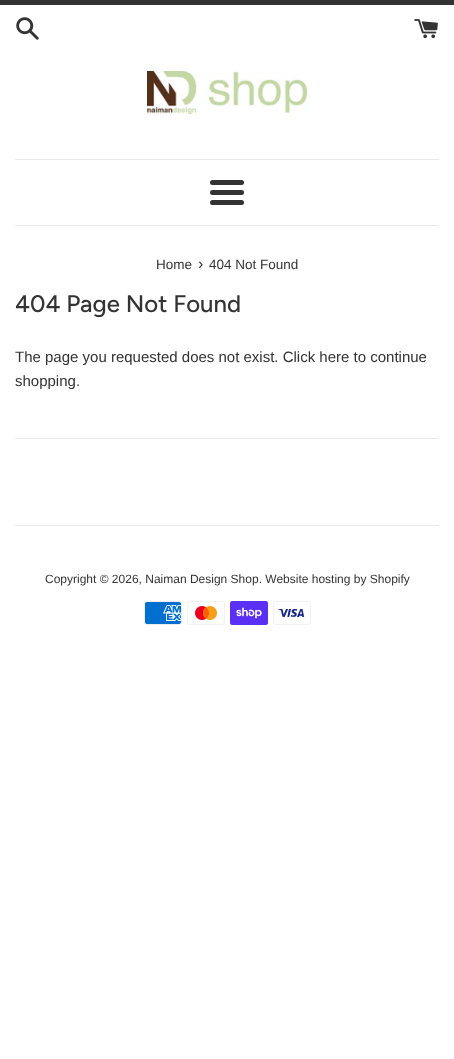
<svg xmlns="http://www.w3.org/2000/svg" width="454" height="1059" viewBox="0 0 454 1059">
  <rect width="100%" height="100%" fill="rgb(255,255,255)"/>
  <rect x="0" y="0" width="454" height="5" fill="rgb(51,51,51)"/>
  <image x="16" y="17" width="23" height="23" href="pic1.png"/>
  <image x="414" y="19" width="24" height="20" href="pic2.png"/>
  <image x="147" y="71" width="160" height="43" href="pic3.png"/>
  <rect x="15" y="159" width="424" height="1" fill="rgb(232,232,232)"/>
  <rect x="210" y="180" width="34" height="5" rx="2.5" fill="rgb(51,51,51)"/>
  <rect x="210" y="190" width="34" height="5" rx="2.5" fill="rgb(51,51,51)"/>
  <rect x="210" y="200" width="34" height="5" rx="2.5" fill="rgb(51,51,51)"/>
  <rect x="15" y="225" width="424" height="1" fill="rgb(232,232,232)"/>
  <text x="156" y="269" font-family="Liberation Sans" font-size="13.5" fill="rgb(51,51,51)">Home</text>
  <text x="198" y="269" font-family="Liberation Sans" font-size="16" fill="rgb(51,51,51)">›</text>
  <text x="209" y="269" font-family="Liberation Sans" font-size="13.5" fill="rgb(51,51,51)">404 Not Found</text>
  <text x="15" y="312" font-family="Figtree" font-size="24" font-weight="500" fill="rgb(51,51,51)">404 Page Not Found</text>
  <g font-family="Liberation Sans" font-size="15" fill="rgb(51,51,51)">
    <text>
      <tspan x="15" y="362">The page you requested does not exist. Click here to continue</tspan>
      <tspan x="15" y="386">shopping.</tspan>
    </text>
  </g>
  <rect x="15" y="438" width="424" height="1" fill="rgb(232,232,232)"/>
  <rect x="15" y="525" width="424" height="1" fill="rgb(232,232,232)"/>
  <text x="45" y="583" font-family="Liberation Sans" font-size="12" fill="rgb(51,51,51)">Copyright © 2026, Naiman Design Shop. Website hosting by Shopify</text>
  <image x="144" y="601" width="38" height="24" href="pic4.png"/>
  <image x="187" y="601" width="38" height="24" href="pic5.png"/>
  <image x="230" y="601" width="38" height="24" href="pic6.png"/>
  <image x="273" y="601" width="38" height="24" href="pic7.png"/>
</svg>
